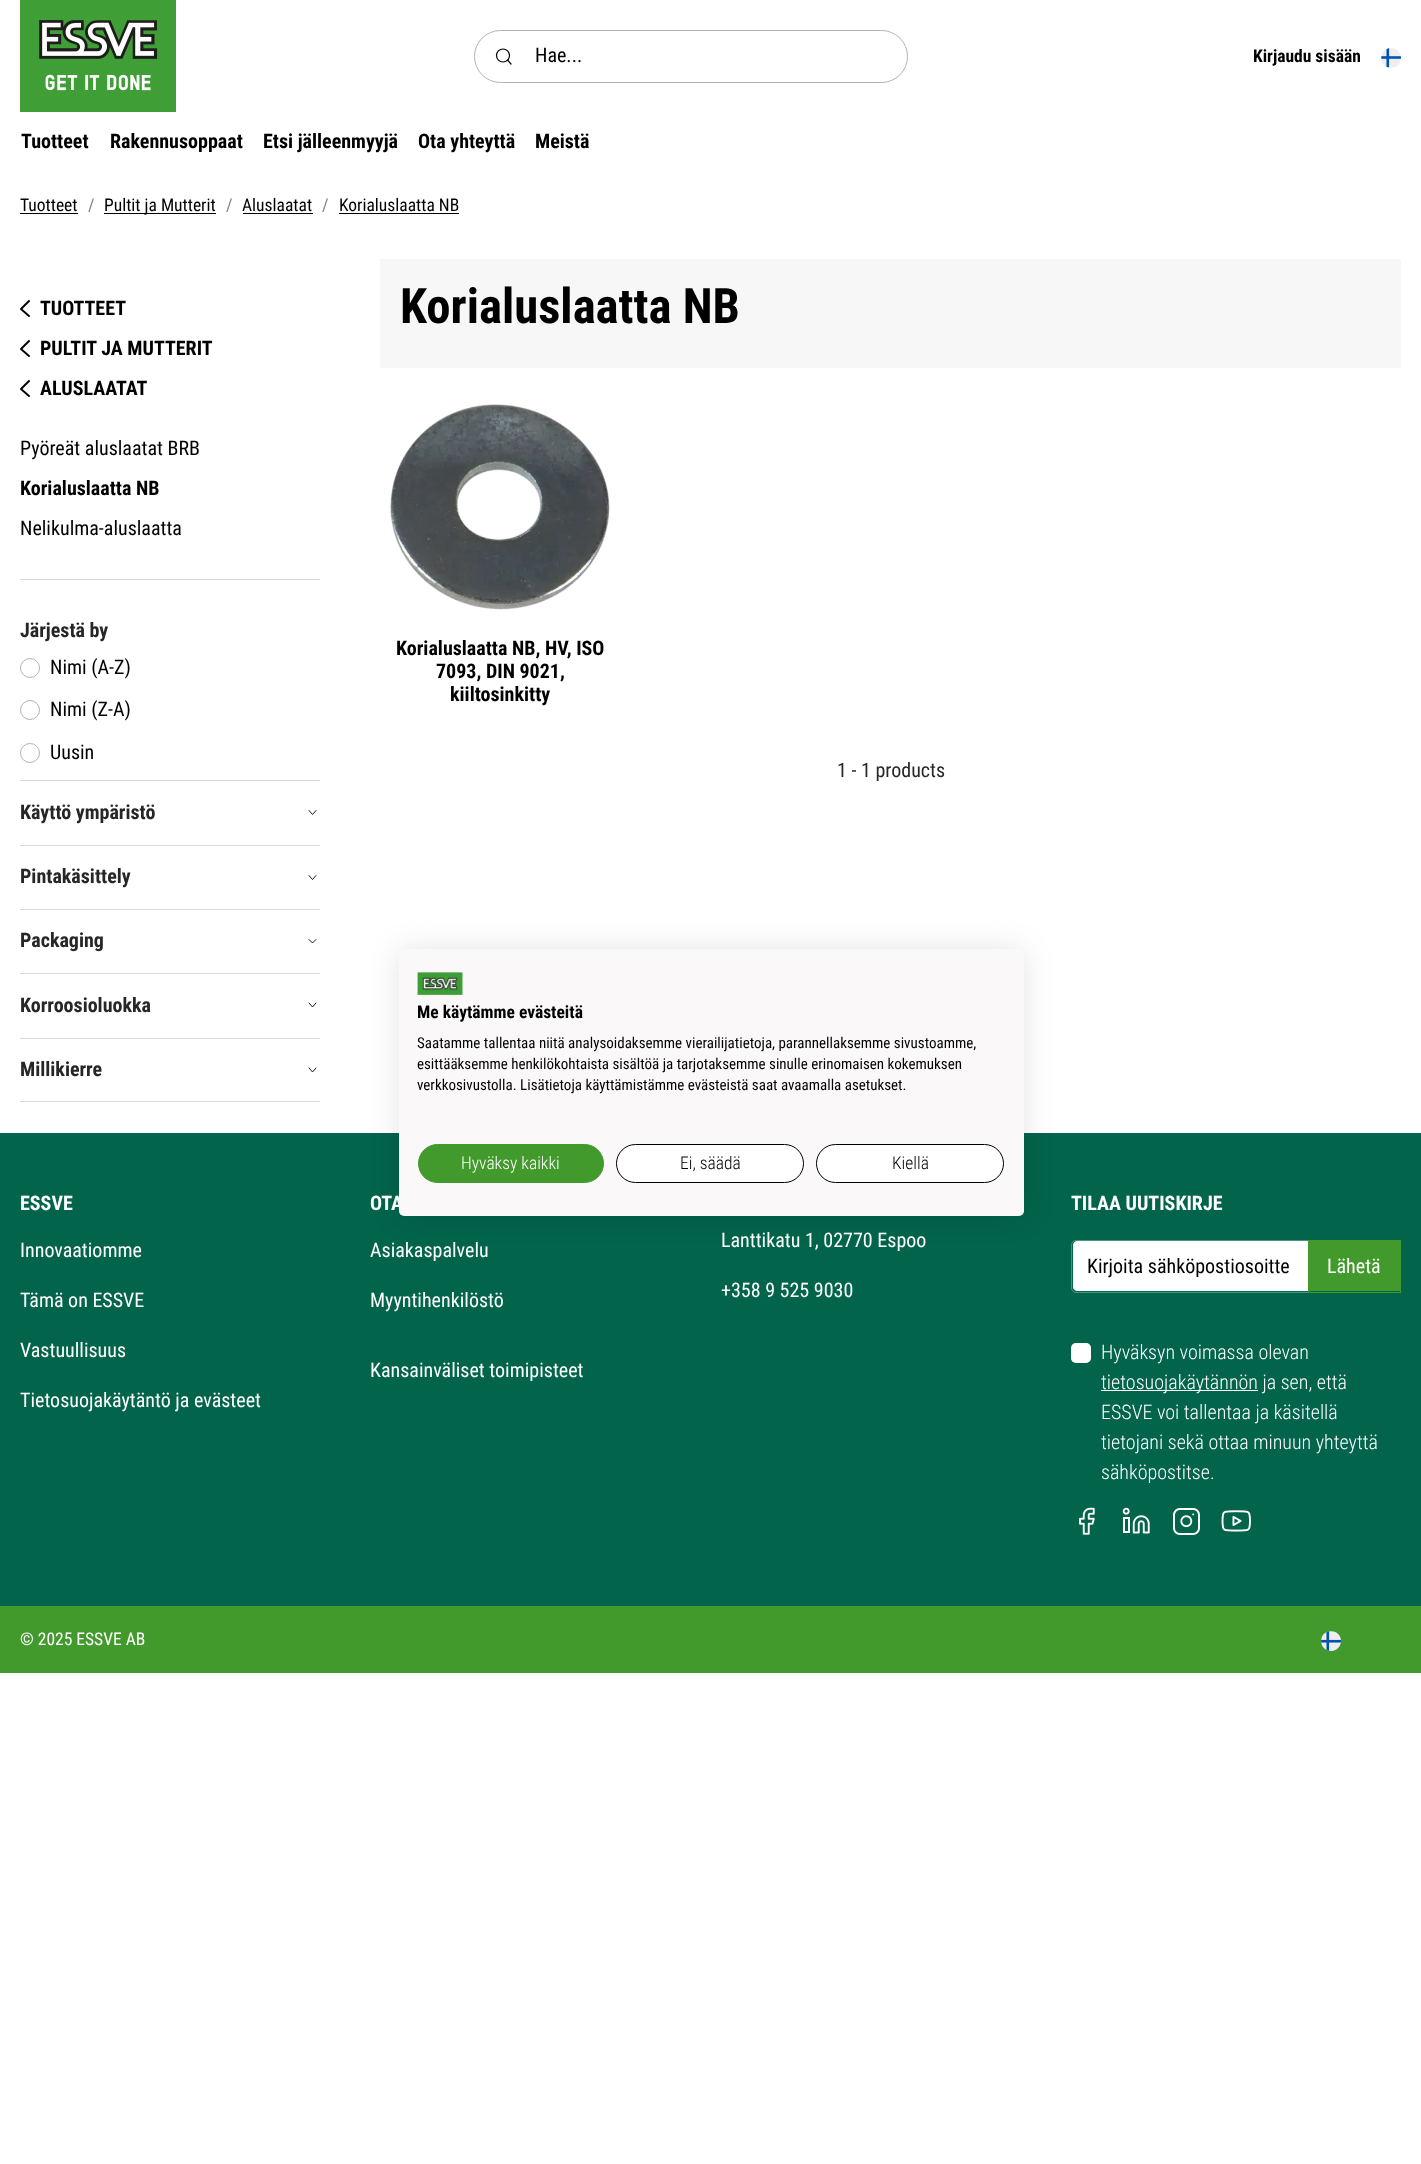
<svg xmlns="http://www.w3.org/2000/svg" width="1421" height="2164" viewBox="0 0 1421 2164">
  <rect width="100%" height="100%" fill="rgb(255,255,255)"/>
  <image x="20" y="0" width="156" height="112" href="pic1.png"/>
  <rect x="474.5" y="30.5" width="433" height="52" rx="26" fill="none" stroke="rgb(179,179,179)"/>
  <circle cx="503" cy="55.5" r="6.5" fill="none" stroke="rgb(0,0,0)" stroke-width="1.2"/>
  <path d="M511 64L507.5 60" fill="none" stroke="rgb(0,0,0)" stroke-width="1.2" stroke-linecap="round" stroke-linejoin="round"/>
  <text x="535" y="62" font-family="Roboto Condensed" font-size="20" fill="rgb(0,0,0)">Hae...</text>
  <text x="1253" y="62" font-family="Roboto Condensed" font-size="17.5" font-weight="bold" fill="rgb(0,0,0)">Kirjaudu sisään</text>
  <image x="1381" y="48" width="20" height="20" href="pic2.png"/>
  <g font-family="Roboto Condensed" font-size="20" font-weight="bold" fill="rgb(0,0,0)">
    <text x="21" y="148">Tuotteet</text>
    <text x="110" y="148">Rakennusoppaat</text>
    <text x="263" y="148">Etsi jälleenmyyjä</text>
    <text x="418" y="148">Ota yhteyttä</text>
    <text x="535" y="148">Meistä</text>
  </g>
  <text x="20" y="211" font-family="Roboto Condensed" font-size="17.5" fill="rgb(0,0,0)">Tuotteet</text>
  <rect x="20" y="213" width="58" height="1" fill="rgb(0,0,0)"/>
  <text x="88" y="211" font-family="Roboto Condensed" font-size="17.5" fill="rgb(128,128,128)">/</text>
  <rect x="104" y="213" width="112" height="1" fill="rgb(0,0,0)"/>
  <text x="104" y="211" font-family="Roboto Condensed" font-size="17.5" fill="rgb(0,0,0)">Pultit ja Mutterit</text>
  <text x="226" y="211" font-family="Roboto Condensed" font-size="17.5" fill="rgb(128,128,128)">/</text>
  <text x="242" y="211" font-family="Roboto Condensed" font-size="17.5" fill="rgb(0,0,0)">Aluslaatat</text>
  <rect x="243" y="213" width="70" height="1" fill="rgb(0,0,0)"/>
  <text x="322" y="211" font-family="Roboto Condensed" font-size="17.5" fill="rgb(128,128,128)">/</text>
  <text x="339" y="211" font-family="Roboto Condensed" font-size="17.5" fill="rgb(0,0,0)">Korialuslaatta NB</text>
  <rect x="339" y="213" width="120" height="1" fill="rgb(0,0,0)"/>
  <rect x="20" y="579" width="300" height="1" fill="rgb(217,217,217)"/>
  <path d="M29 316L21 309L29 301M29 356L21 349L29 341" fill="none" stroke="rgb(0,0,0)" stroke-width="1.9" stroke-linecap="round" stroke-linejoin="round"/>
  <g font-family="Roboto Condensed" font-size="20" font-weight="bold" fill="rgb(0,0,0)">
    <text x="40" y="315">TUOTTEET</text>
    <text x="40" y="355">PULTIT JA MUTTERIT</text>
  </g>
  <path d="M29 396L21 389L29 381" fill="none" stroke="rgb(0,0,0)" stroke-width="1.9" stroke-linecap="round" stroke-linejoin="round"/>
  <text x="40" y="395" font-family="Roboto Condensed" font-size="20" font-weight="bold" fill="rgb(0,0,0)">ALUSLAATAT</text>
  <text x="20" y="455" font-family="Roboto Condensed" font-size="20" fill="rgb(0,0,0)">Pyöreät aluslaatat BRB</text>
  <text x="20" y="495" font-family="Roboto Condensed" font-size="20" font-weight="bold" fill="rgb(0,0,0)">Korialuslaatta NB</text>
  <text x="20" y="535" font-family="Roboto Condensed" font-size="20" fill="rgb(0,0,0)">Nelikulma-aluslaatta</text>
  <rect x="20" y="780" width="300" height="1" fill="rgb(217,217,217)"/>
  <text x="20" y="637" font-family="Roboto Condensed" font-size="20" font-weight="bold" fill="rgb(38,38,38)">Järjestä by</text>
  <circle cx="30" cy="668" r="9.5" fill="none" stroke="rgb(179,179,179)"/>
  <text x="50" y="674" font-family="Roboto Condensed" font-size="20" fill="rgb(0,0,0)">Nimi (A-Z)</text>
  <circle cx="30" cy="710" r="9.5" fill="none" stroke="rgb(179,179,179)"/>
  <text x="50" y="716" font-family="Roboto Condensed" font-size="20" fill="rgb(0,0,0)">Nimi (Z-A)</text>
  <circle cx="30" cy="753" r="9.5" fill="none" stroke="rgb(179,179,179)"/>
  <text x="50" y="759" font-family="Roboto Condensed" font-size="20" fill="rgb(0,0,0)">Uusin</text>
  <rect x="20" y="845" width="300" height="1" fill="rgb(217,217,217)"/>
  <text x="20" y="819" font-family="Roboto Condensed" font-size="20" font-weight="bold" fill="rgb(38,38,38)">Käyttö ympäristö</text>
  <path d="M309 810.5L312.5 814.5L316 810.5" fill="none" stroke="rgb(0,0,0)" stroke-width="0.9" stroke-linecap="round" stroke-linejoin="round"/>
  <rect x="20" y="909" width="300" height="1" fill="rgb(217,217,217)"/>
  <text x="20" y="883" font-family="Roboto Condensed" font-size="20" font-weight="bold" fill="rgb(38,38,38)">Pintakäsittely</text>
  <path d="M309 875.5L312.5 879.5L316 875.5" fill="none" stroke="rgb(0,0,0)" stroke-width="0.9" stroke-linecap="round" stroke-linejoin="round"/>
  <rect x="20" y="973" width="300" height="1" fill="rgb(217,217,217)"/>
  <text x="20" y="947" font-family="Roboto Condensed" font-size="20" font-weight="bold" fill="rgb(38,38,38)">Packaging</text>
  <path d="M309 939.5L312.5 943L316 939.5" fill="none" stroke="rgb(0,0,0)" stroke-width="0.9" stroke-linecap="round" stroke-linejoin="round"/>
  <rect x="20" y="1038" width="300" height="1" fill="rgb(217,217,217)"/>
  <text x="20" y="1012" font-family="Roboto Condensed" font-size="20" font-weight="bold" fill="rgb(38,38,38)">Korroosioluokka</text>
  <path d="M309 1003L312.5 1007L316 1003" fill="none" stroke="rgb(0,0,0)" stroke-width="0.9" stroke-linecap="round" stroke-linejoin="round"/>
  <rect x="20" y="1101" width="300" height="1" fill="rgb(217,217,217)"/>
  <text x="20" y="1076" font-family="Roboto Condensed" font-size="20" font-weight="bold" fill="rgb(38,38,38)">Millikierre</text>
  <path d="M309 1068L312.5 1072L316 1068" fill="none" stroke="rgb(0,0,0)" stroke-width="0.9" stroke-linecap="round" stroke-linejoin="round"/>
  <rect x="380" y="259" width="1021" height="109" fill="rgb(247,247,247)"/>
  <text x="400" y="323" font-family="Roboto Condensed" font-size="48.75" font-weight="bold" fill="rgb(0,0,0)">Korialuslaatta NB</text>
  <image x="390" y="404" width="220" height="206" href="pic3.png"/>
  <g font-family="Roboto Condensed" font-size="20" font-weight="bold" fill="rgb(0,0,0)">
    <text x="396" y="655">Korialuslaatta NB, HV, ISO</text>
    <text x="436" y="678">7093, DIN 9021,</text>
    <text x="450" y="701">kiiltosinkitty</text>
  </g>
  <text x="837" y="777" font-family="Roboto Condensed" font-size="20" fill="rgb(38,38,38)">1 - 1 products</text>
  <rect x="0" y="1133" width="1421" height="473" fill="rgb(2,100,75)"/>
  <rect x="399" y="949" width="625" height="267" rx="5" fill="rgba(0,0,0,0.1)" filter="blur(15px)"/>
  <text x="370" y="1210" font-family="Roboto Condensed" font-size="20" font-weight="bold" fill="rgb(255,255,255)">OTA</text>
  <rect x="399" y="949" width="625" height="267" rx="5" fill="rgb(250,248,248)"/>
  <image x="417" y="972" width="46" height="23" href="pic4.png"/>
  <text x="417" y="1018" font-family="Roboto Condensed" font-size="17.5" font-weight="bold" fill="rgb(0,0,0)">Me käytämme evästeitä</text>
  <g font-family="Roboto Condensed" font-size="15" fill="rgb(0,0,0)">
    <text>
      <tspan x="417" y="1048">Saatamme tallentaa niitä analysoidaksemme vierailijatietoja, parannellaksemme sivustoamme,</tspan>
      <tspan x="417" y="1069">esittääksemme henkilökohtaista sisältöä ja tarjotaksemme sinulle erinomaisen kokemuksen</tspan>
      <tspan x="417" y="1090">verkkosivustolla. Lisätietoja käyttämistämme evästeistä saat avaamalla asetukset.</tspan>
    </text>
  </g>
  <rect x="418.5" y="1144.5" width="185" height="38" rx="19" fill="rgb(66,154,44)" stroke="rgb(66,154,44)"/>
  <text x="461" y="1169" font-family="Roboto Condensed" font-size="17.5" font-weight="300" fill="rgb(255,255,255)">Hyväksy kaikki</text>
  <rect x="616.5" y="1144.5" width="187" height="38" rx="19" fill="rgb(255,255,255)" stroke="rgb(0,0,0)"/>
  <text x="680" y="1169" font-family="Roboto Condensed" font-size="17.5" font-weight="300" fill="rgb(0,0,0)">Ei, säädä</text>
  <rect x="816.5" y="1144.5" width="187" height="38" rx="19" fill="rgb(255,255,255)" stroke="rgb(0,0,0)"/>
  <text x="892" y="1169" font-family="Roboto Condensed" font-size="17.5" font-weight="300" fill="rgb(0,0,0)">Kiellä</text>
  <text x="20" y="1210" font-family="Roboto Condensed" font-size="20" font-weight="bold" fill="rgb(255,255,255)">ESSVE</text>
  <g font-family="Roboto Condensed" font-size="20" fill="rgb(255,255,255)">
    <text x="20" y="1257">Innovaatiomme</text>
    <text x="20" y="1307">Tämä on ESSVE</text>
    <text x="20" y="1357">Vastuullisuus</text>
    <text x="20" y="1407">Tietosuojakäytäntö ja evästeet</text>
    <text x="370" y="1257">Asiakaspalvelu</text>
    <text x="370" y="1307">Myyntihenkilöstö</text>
    <text x="370" y="1377">Kansainväliset toimipisteet</text>
    <text x="721" y="1247">Lanttikatu 1, 02770 Espoo</text>
    <text x="721" y="1297">+358 9 525 9030</text>
  </g>
  <text x="1071" y="1210" font-family="Roboto Condensed" font-size="20" font-weight="bold" fill="rgb(255,255,255)">TILAA UUTISKIRJE</text>
  <path d="M1077 1241H1308V1291H1077C1075 1291 1073 1289 1073 1287V1245C1073 1243 1075 1241 1077 1241Z" fill="rgb(255,255,255)"/>
  <path d="M1076 1240.5H1308.5V1292.5H1076C1073.5 1292.5 1071.5 1290.5 1071.5 1288V1245C1071.5 1242.5 1073.5 1240.5 1076 1240.5Z" fill="none" stroke="rgb(78,147,129)"/>
  <text x="1087" y="1273" font-family="Roboto Condensed" font-size="20" fill="rgb(0,0,0)">Kirjoita sähköpostiosoitte</text>
  <rect x="1309" y="1241" width="91" height="50" fill="rgb(66,154,44)"/>
  <rect x="1308.5" y="1240.5" width="92" height="52" fill="none" stroke="rgb(66,154,44)"/>
  <text x="1327" y="1273" font-family="Roboto Condensed" font-size="20" fill="rgb(255,255,255)">Lähetä</text>
  <rect x="1071" y="1343" width="20" height="20" rx="5" fill="rgb(255,255,255)"/>
  <rect x="1071.5" y="1343.5" width="19" height="19" rx="4.5" fill="none" stroke="rgba(255,255,255,0.3)"/>
  <text x="1101" y="1359" font-family="Roboto Condensed" font-size="20" font-weight="300" fill="rgb(255,255,255)">Hyväksyn voimassa olevan</text>
  <rect x="1101" y="1390" width="157" height="1" fill="rgb(255,255,255)"/>
  <g font-family="Roboto Condensed" font-size="20" font-weight="300" fill="rgb(255,255,255)">
    <text>
      <tspan x="1101" y="1389">tietosuojakäytännön ja sen, että</tspan>
      <tspan x="1101" y="1419">ESSVE voi tallentaa ja käsitellä</tspan>
      <tspan x="1101" y="1449">tietojani sekä ottaa minuun yhteyttä</tspan>
      <tspan x="1101" y="1479">sähköpostitse.</tspan>
    </text>
  </g>
  <image x="1079" y="1507" width="16" height="28" href="pic5.png"/>
  <image x="1122" y="1507" width="28" height="27" href="pic6.png"/>
  <image x="1173" y="1508" width="27" height="27" href="pic7.png"/>
  <image x="1221" y="1510" width="30" height="22" href="pic8.png"/>
  <rect x="0" y="1606" width="1421" height="67" fill="rgb(66,154,44)"/>
  <text x="20" y="1645" font-family="Roboto Condensed" font-size="17.5" fill="rgb(255,255,255)">© 2025 ESSVE AB</text>
  <image x="1321" y="1631" width="20" height="20" href="pic9.png"/>
</svg>
